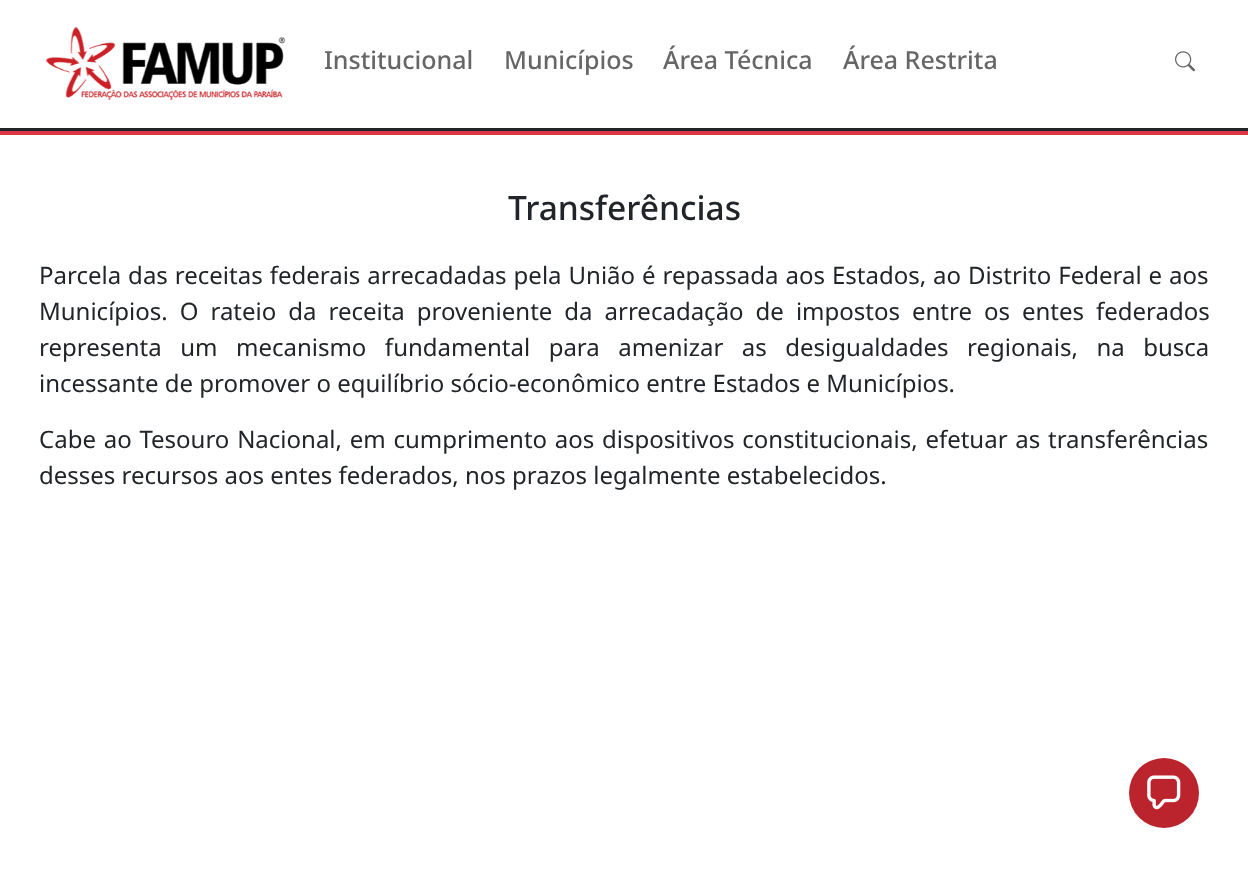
<svg xmlns="http://www.w3.org/2000/svg" width="1248" height="877" viewBox="0 0 1248 877">
  <rect width="100%" height="100%" fill="rgb(255,255,255)"/>
  <rect x="0" y="131" width="1248" height="4" fill="rgb(220,53,69)"/>
  <rect x="0" y="128" width="1248" height="3" fill="rgb(33,37,41)"/>
  <image x="45" y="27" width="241" height="73" href="pic1.png"/>
  <g font-family="Noto Sans" font-size="25" font-weight="500" fill="rgb(102,102,102)">
    <text x="324" y="69">Institucional</text>
    <text x="504" y="69">Municípios</text>
    <text x="663" y="69">Área Técnica</text>
    <text x="843" y="69">Área Restrita</text>
  </g>
  <image x="1175" y="51" width="20" height="21" href="pic2.png"/>
  <text x="508" y="220" font-family="Noto Sans" font-size="33.5" font-weight="500" fill="rgb(33,37,41)">Transferências</text>
  <g font-family="Noto Sans" font-size="24" fill="rgb(33,37,41)">
    <text>
      <tspan x="39" y="284" word-spacing="0.75">Parcela das receitas federais arrecadadas pela União é repassada aos Estados, ao Distrito Federal e aos</tspan>
      <tspan x="39" y="320" word-spacing="5.75">Municípios. O rateio da receita proveniente da arrecadação de impostos entre os entes federados</tspan>
      <tspan x="39" y="356" word-spacing="12.25">representa um mecanismo fundamental para amenizar as desigualdades regionais, na busca</tspan>
      <tspan x="39" y="392">incessante de promover o equilíbrio sócio-econômico entre Estados e Municípios.</tspan>
    </text>
    <text>
      <tspan x="39" y="448" word-spacing="1.5">Cabe ao Tesouro Nacional, em cumprimento aos dispositivos constitucionais, efetuar as transferências</tspan>
      <tspan x="39" y="484">desses recursos aos entes federados, nos prazos legalmente estabelecidos.</tspan>
    </text>
  </g>
  <circle cx="1164" cy="793" r="35" fill="rgb(187,36,44)"/>
  <image x="1147" y="775" width="34" height="35" href="pic3.png"/>
</svg>
